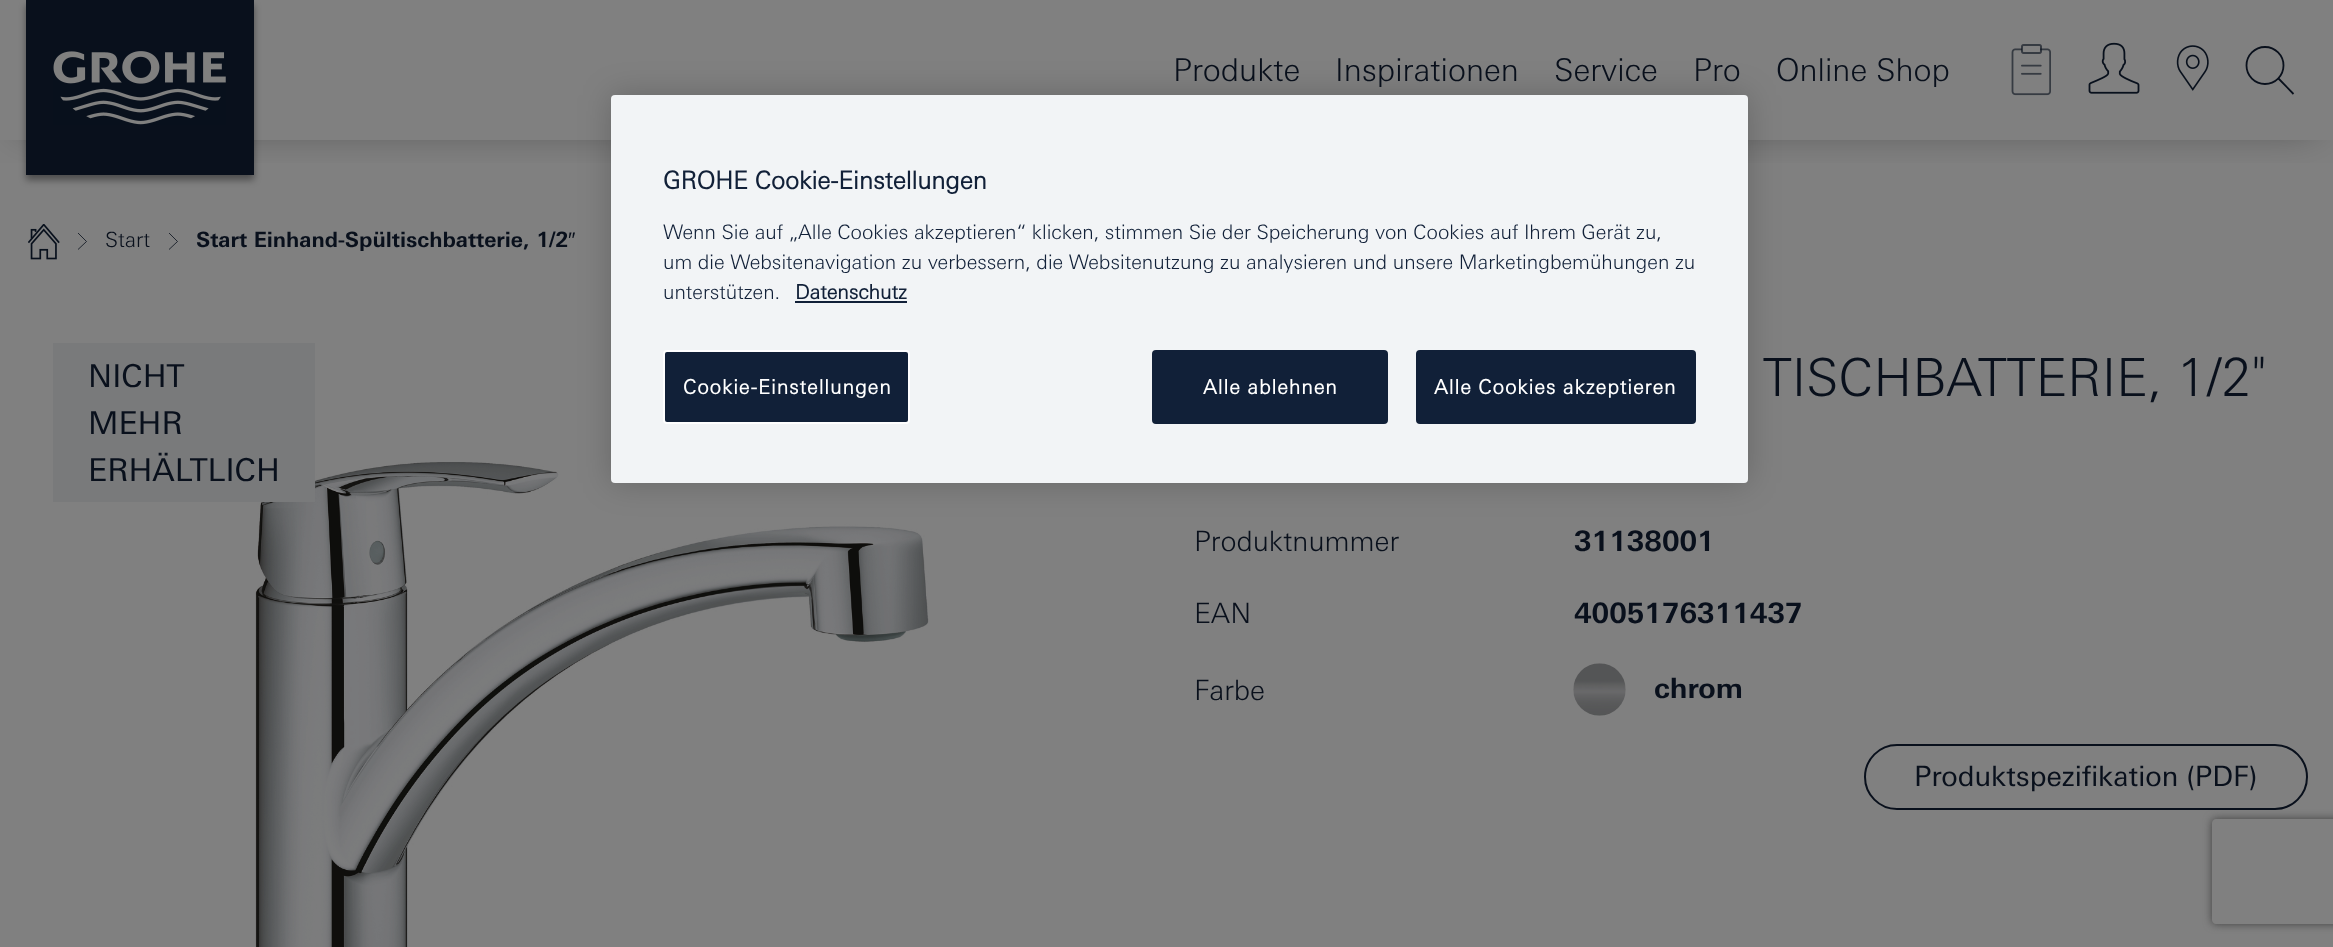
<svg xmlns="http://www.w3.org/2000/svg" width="2333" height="947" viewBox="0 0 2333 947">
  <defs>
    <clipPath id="clip1"><rect x="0" y="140" width="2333" height="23"/></clipPath>
    <clipPath id="clip2"><path d="M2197 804H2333V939H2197ZM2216 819H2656C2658 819 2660 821 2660 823V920C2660 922 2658 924 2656 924H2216C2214 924 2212 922 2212 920V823C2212 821 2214 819 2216 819Z" clip-rule="evenodd"/></clipPath>
  </defs>
  <rect width="100%" height="100%" fill="rgb(128,128,128)"/>
  <g clip-path="url(#clip1)">
    <rect x="18" y="23" width="2299" height="105" fill="rgba(0,0,0,0.4)" filter="blur(21px)"/>
  </g>
  <rect x="26" y="5" width="228" height="175" fill="rgba(0,0,0,0.4)" filter="blur(3.5px)"/>
  <rect x="26" y="0" width="228" height="175" fill="rgb(9,16,28)"/>
  <image x="53" y="51" width="173" height="74" href="pic1.png"/>
  <g font-family="'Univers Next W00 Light'" font-size="31.5" font-weight="300" fill="rgb(9,16,28)">
    <text x="1173" y="81">Produkte</text>
    <text x="1335" y="81">Inspirationen</text>
    <text x="1554" y="81">Service</text>
    <text x="1693" y="81">Pro</text>
    <text x="1776" y="81">Online Shop</text>
  </g>
  <image x="2011" y="44" width="40" height="52" href="pic2.png"/>
  <image x="2088" y="42" width="52" height="52" href="pic3.png"/>
  <image x="2176" y="45" width="33" height="46" href="pic4.png"/>
  <path d="M2293.5 94L2278 78Z" fill="none" stroke="rgb(9,16,28)" stroke-width="1.8"/>
  <circle cx="2265" cy="65.5" r="18.5" fill="none" stroke="rgb(9,16,28)" stroke-width="1.8"/>
  <image x="28" y="224" width="32" height="36" href="pic5.png"/>
  <path d="M78 233L86.5 241.5L78 249.5" fill="none" stroke="rgb(9,16,28)" stroke-width="0.8"/>
  <text x="105" y="247" font-family="'Univers Next W00 Light'" font-size="21" font-weight="300" fill="rgb(9,16,28)">Start</text>
  <path d="M169 233L177.5 241.5L169 249.5" fill="none" stroke="rgb(9,16,28)" stroke-width="0.8"/>
  <text x="196" y="247" font-family="'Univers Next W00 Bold'" font-size="21" font-weight="bold" fill="rgb(9,16,28)">Start Einhand-Spültischbatterie, 1/2</text>
  <text x="568" y="247" font-family="Liberation Sans" font-size="21" fill="rgb(9,16,28)">″</text>
  <image x="255" y="462" width="674" height="485" href="pic6.png"/>
  <rect x="53" y="343" width="262" height="159" fill="rgb(121,122,123)"/>
  <g font-family="'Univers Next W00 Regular'" font-size="31.5" fill="rgb(9,16,28)">
    <text>
      <tspan x="88" y="387">NICHT</tspan>
      <tspan x="88" y="434">MEHR</tspan>
      <tspan x="88" y="481">ERHÄLTLICH</tspan>
    </text>
  </g>
  <text x="1763" y="396" font-family="'Univers Next W00 Light'" font-size="52.5" font-weight="300" fill="rgb(9,16,28)">TISCHBATTERIE, 1/2</text>
  <text x="2251" y="396" font-family="Roboto" font-size="52.5" font-weight="300" fill="rgb(9,16,28)">″</text>
  <text x="1194" y="551" font-family="'Univers Next W00 Light'" font-size="28" font-weight="300" fill="rgb(9,16,28)">Produktnummer</text>
  <text x="1574" y="551" font-family="'Univers Next W00 Bold'" font-size="28" font-weight="bold" fill="rgb(9,16,28)">31138001</text>
  <text x="1194" y="623" font-family="'Univers Next W00 Light'" font-size="28" font-weight="300" fill="rgb(9,16,28)">EAN</text>
  <text x="1574" y="623" font-family="'Univers Next W00 Bold'" font-size="28" font-weight="bold" fill="rgb(9,16,28)">4005176311437</text>
  <text x="1194" y="700" font-family="'Univers Next W00 Light'" font-size="28" font-weight="300" fill="rgb(9,16,28)">Farbe</text>
  <image x="1573" y="663" width="53" height="53" href="pic7.png"/>
  <text x="1654" y="698" font-family="'Univers Next W00 Bold'" font-size="28" font-weight="bold" fill="rgb(9,16,28)">chrom</text>
  <rect x="1865" y="745" width="442" height="64" rx="32" fill="none" stroke="rgb(9,16,28)" stroke-width="2"/>
  <text x="1914" y="786" font-family="'Univers Next W00 Regular'" font-size="28" fill="rgb(9,16,28)">Produktspezifikation (PDF)</text>
  <rect x="611" y="95" width="1137" height="388" rx="4" fill="rgba(0,0,0,0.2)" filter="blur(16px)"/>
  <rect x="611" y="95" width="1137" height="388" rx="4" fill="rgb(242,244,246)"/>
  <text x="663" y="189" font-family="'Univers Next W00 Light'" font-size="24.5" font-weight="bold" fill="rgb(17,32,56)">GROHE Cookie-Einstellungen</text>
  <g font-family="'Univers Next W00 Light'" font-size="19.92" font-weight="300" fill="rgb(17,32,56)">
    <text>
      <tspan x="663" y="239">Wenn Sie auf „Alle Cookies akzeptieren“ klicken, stimmen Sie der Speicherung von Cookies auf Ihrem Gerät zu,</tspan>
      <tspan x="663" y="269">um die Websitenavigation zu verbessern, die Websitenutzung zu analysieren und unsere Marketingbemühungen zu</tspan>
      <tspan x="663" y="299">unterstützen.</tspan>
    </text>
  </g>
  <text x="795" y="299" font-family="'Univers Next W00 Light'" font-size="19.92" font-weight="bold" fill="rgb(17,32,56)">Datenschutz</text>
  <rect x="795" y="301" width="112" height="2" fill="rgb(17,32,56)"/>
  <rect x="664" y="351" width="245" height="72" rx="3" fill="rgb(17,32,56)" stroke="rgb(255,255,255)" stroke-width="2"/>
  <text x="683" y="394" font-family="'Univers Next W00 Light'" font-size="19.92" font-weight="bold" letter-spacing="1" fill="rgb(255,255,255)">Cookie-Einstellungen</text>
  <rect x="1153" y="351" width="234" height="72" rx="3" fill="rgb(17,32,56)" stroke="rgb(17,32,56)" stroke-width="2"/>
  <text x="1203" y="394" font-family="'Univers Next W00 Light'" font-size="19.92" font-weight="bold" letter-spacing="1" fill="rgb(255,255,255)">Alle ablehnen</text>
  <rect x="1417" y="351" width="278" height="72" rx="3" fill="rgb(17,32,56)" stroke="rgb(17,32,56)" stroke-width="2"/>
  <text x="1434" y="394" font-family="'Univers Next W00 Light'" font-size="19.92" font-weight="bold" letter-spacing="1" fill="rgb(255,255,255)">Alle Cookies akzeptieren</text>
  <g clip-path="url(#clip2)">
    <rect x="2212" y="819" width="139" height="105" rx="4" fill="rgb(64,64,64)" filter="blur(4.5px)"/>
  </g>
</svg>
